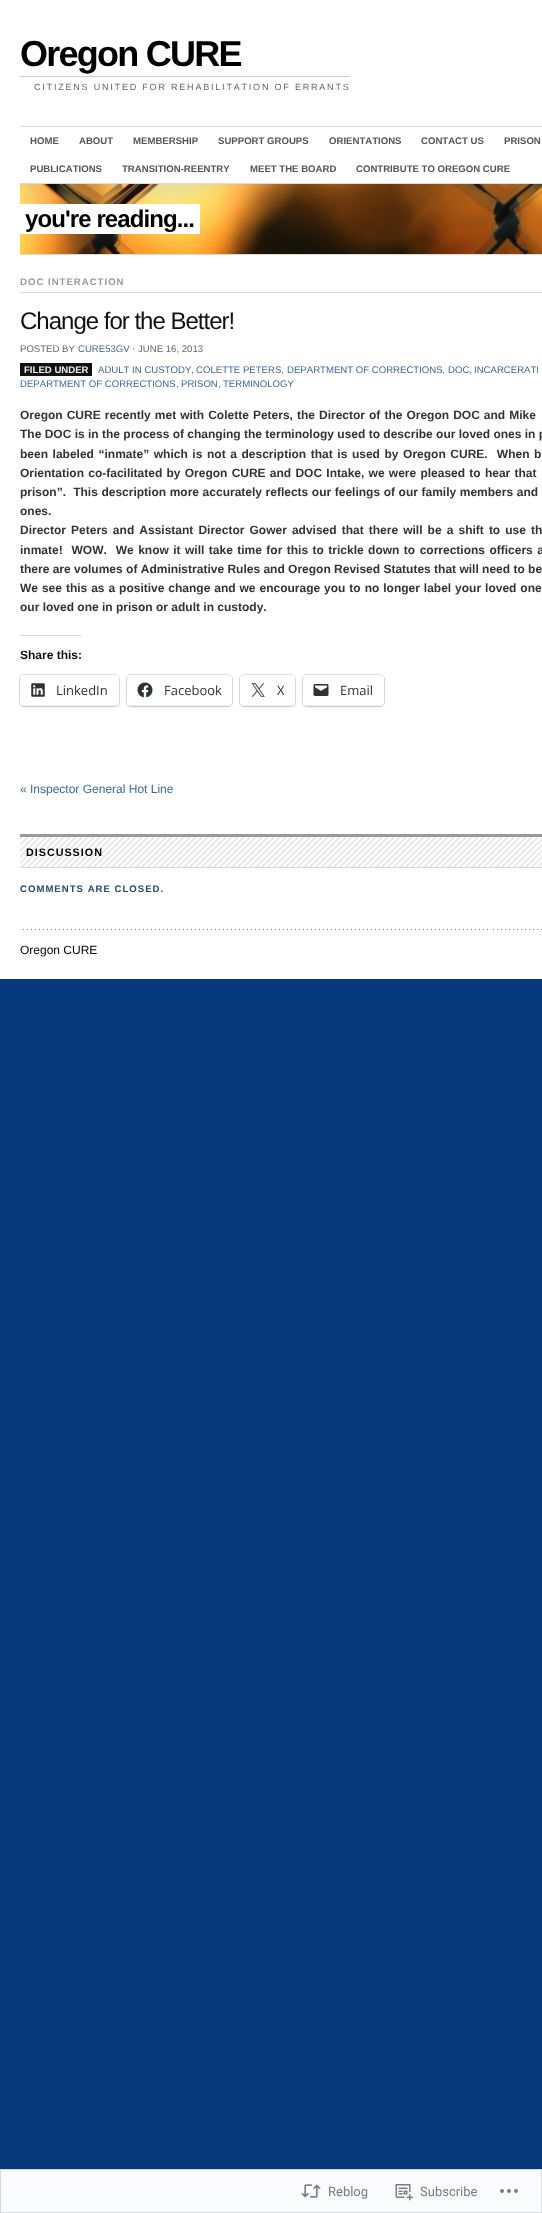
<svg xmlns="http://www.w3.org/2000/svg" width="542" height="2213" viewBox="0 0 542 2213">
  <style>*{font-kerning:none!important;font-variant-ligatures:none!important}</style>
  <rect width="100%" height="100%" fill="rgb(6,57,124)"/>
  <rect x="0" y="0" width="542" height="979" fill="rgb(255,255,255)"/>
  <text x="20" y="66" font-family="Liberation Sans" font-size="36" font-weight="bold" letter-spacing="-1.75" fill="rgb(0,0,0)">Oregon CURE</text>
  <rect x="20" y="76" width="330" height="1" fill="rgb(204,204,204)"/>
  <text x="34" y="90" font-family="Liberation Sans" font-size="9" letter-spacing="1.8" fill="rgb(102,102,102)">CITIZENS UNITED FOR REHABILITATION OF ERRANTS</text>
  <rect x="20" y="126" width="522" height="1" fill="rgb(218,218,218)"/>
  <g font-family="Liberation Sans" font-size="9.6" font-weight="bold" fill="rgb(85,85,85)">
    <text x="30" y="144">HOME</text>
    <text x="79" y="144">ABOUT</text>
    <text x="133" y="144">MEMBERSHIP</text>
    <text x="218" y="144">SUPPORT GROUPS</text>
    <text x="329" y="144">ORIENTATIONS</text>
    <text x="421" y="144">CONTACT US</text>
    <text x="504" y="144">PRISON</text>
    <text x="30" y="172">PUBLICATIONS</text>
    <text x="122" y="172">TRANSITION-REENTRY</text>
    <text x="250" y="172">MEET THE BOARD</text>
    <text x="356" y="172">CONTRIBUTE TO OREGON CURE</text>
  </g>
  <image x="20" y="184" width="522" height="70" href="pic1.png"/>
  <rect x="20" y="183" width="522" height="1" fill="rgb(218,218,218)"/>
  <rect x="20" y="254" width="522" height="1" fill="rgb(218,218,218)"/>
  <rect x="20" y="204" width="180" height="30" fill="rgb(255,255,255)"/>
  <text x="25" y="227" font-family="Liberation Sans" font-size="24" font-weight="bold" letter-spacing="-0.9" fill="rgb(0,0,0)">you're reading...</text>
  <rect x="20" y="292" width="522" height="1" fill="rgb(218,218,218)"/>
  <text x="20" y="285" font-family="Liberation Sans" font-size="9.6" font-weight="bold" letter-spacing="1" fill="rgb(153,153,153)">DOC INTERACTION</text>
  <text x="20" y="329" font-family="Liberation Sans" font-size="24" letter-spacing="-1" fill="rgb(17,17,17)">Change for the Better!</text>
  <text x="20" y="352" font-family="Liberation Sans" font-size="9.6" fill="rgb(102,102,102)">POSTED BY</text>
  <text x="78" y="352" font-family="Liberation Sans" font-size="9.6" fill="rgb(58,105,153)">CURE53GV</text>
  <text x="132" y="352" font-family="DejaVu Sans" font-size="9.6" fill="rgb(102,102,102)">⋅</text>
  <text x="138" y="352" font-family="Liberation Sans" font-size="9.6" fill="rgb(102,102,102)">JUNE 16, 2013</text>
  <rect x="20" y="363" width="72" height="13" fill="rgb(17,17,17)"/>
  <text x="24" y="373" font-family="Liberation Sans" font-size="9.6" font-weight="bold" fill="rgb(238,238,238)">FILED UNDER</text>
  <text x="98" y="373" font-family="Liberation Sans" font-size="9.6" fill="rgb(58,105,153)">ADULT IN CUSTODY</text>
  <text x="191" y="373" font-family="Liberation Sans" font-size="9.6" fill="rgb(102,102,102)">,</text>
  <text x="196" y="373" font-family="Liberation Sans" font-size="9.6" fill="rgb(58,105,153)">COLETTE PETERS</text>
  <text x="281" y="373" font-family="Liberation Sans" font-size="9.6" fill="rgb(102,102,102)">,</text>
  <text x="287" y="373" font-family="Liberation Sans" font-size="9.6" fill="rgb(58,105,153)">DEPARTMENT OF CORRECTIONS</text>
  <text x="442" y="373" font-family="Liberation Sans" font-size="9.6" fill="rgb(102,102,102)">,</text>
  <text x="448" y="373" font-family="Liberation Sans" font-size="9.6" fill="rgb(58,105,153)">DOC</text>
  <text x="469" y="373" font-family="Liberation Sans" font-size="9.6" fill="rgb(102,102,102)">,</text>
  <g font-family="Liberation Sans" font-size="9.6" fill="rgb(58,105,153)">
    <text x="474" y="373">INCARCERATI</text>
    <text x="20" y="387">DEPARTMENT OF CORRECTIONS</text>
  </g>
  <text x="176" y="387" font-family="Liberation Sans" font-size="9.6" fill="rgb(102,102,102)">,</text>
  <text x="181" y="387" font-family="Liberation Sans" font-size="9.6" fill="rgb(58,105,153)">PRISON</text>
  <text x="218" y="387" font-family="Liberation Sans" font-size="9.6" fill="rgb(102,102,102)">,</text>
  <text x="223" y="387" font-family="Liberation Sans" font-size="9.6" fill="rgb(58,105,153)">TERMINOLOGY</text>
  <g font-family="Liberation Sans" font-size="12" font-weight="bold" fill="rgb(51,51,51)">
    <text xml:space="preserve"><tspan x="20" y="419" word-spacing="0.7">Oregon CURE recently met with Colette Peters, the Director of the Oregon DOC and Mike</tspan><tspan x="20" y="438">The DOC is in the process of changing the terminology used to describe our loved ones in p</tspan><tspan x="20" y="458" word-spacing="1.25">been labeled “inmate” which is not a description that is used by Oregon CURE.  When b</tspan><tspan x="20" y="477" word-spacing="0.9">Orientation co-facilitated by Oregon CURE and DOC Intake, we were pleased to hear that</tspan><tspan x="20" y="496" word-spacing="0.25">prison”.  This description more accurately reflects our feelings of our family members and</tspan><tspan x="20" y="515">ones.</tspan><tspan x="20" y="534" word-spacing="1.75">Director Peters and Assistant Director Gower advised that there will be a shift to use th</tspan><tspan x="20" y="554" word-spacing="1.1">inmate!  WOW.  We know it will take time for this to trickle down to corrections officers a</tspan><tspan x="20" y="573">there are volumes of Administrative Rules and Oregon Revised Statutes that will need to be</tspan><tspan x="20" y="592" word-spacing="0.6">We see this as a positive change and we encourage you to no longer label your loved one</tspan><tspan x="20" y="611">our loved one in prison or adult in custody.</tspan></text>
  </g>
  <rect x="20" y="635" width="62" height="1" fill="rgb(220,220,222)"/>
  <text x="20" y="659" font-family="Liberation Sans" font-size="12" font-weight="bold" fill="rgb(17,17,17)">Share this:</text>
  <rect x="19.5" y="674.5" width="100" height="32" rx="4.5" fill="none" stroke="rgb(224,224,224)"/>
  <rect x="20" y="676" width="99" height="31" rx="4" fill="rgba(0,0,0,0.12)" filter="blur(1px)"/>
  <rect x="20" y="675" width="99" height="31" rx="4" fill="rgb(255,255,255)"/>
  <rect x="22" y="705" width="95" height="1" fill="rgb(238,238,238)"/>
  <image x="31" y="683" width="14" height="14" href="pic2.png"/>
  <text x="56" y="695" font-family="Open Sans" font-size="13" fill="rgb(44,51,56)">LinkedIn</text>
  <rect x="126.5" y="674.5" width="106" height="32" rx="4.5" fill="none" stroke="rgb(224,224,224)"/>
  <rect x="127" y="676" width="105" height="31" rx="4" fill="rgba(0,0,0,0.12)" filter="blur(1px)"/>
  <rect x="127" y="675" width="105" height="31" rx="4" fill="rgb(255,255,255)"/>
  <rect x="129" y="705" width="101" height="1" fill="rgb(238,238,238)"/>
  <image x="137" y="682" width="16" height="16" href="pic3.png"/>
  <text x="164" y="695" font-family="Open Sans" font-size="13" fill="rgb(44,51,56)">Facebook</text>
  <rect x="239.5" y="674.5" width="56" height="32" rx="4.5" fill="none" stroke="rgb(224,224,224)"/>
  <rect x="240" y="676" width="55" height="31" rx="4" fill="rgba(0,0,0,0.12)" filter="blur(1px)"/>
  <rect x="240" y="675" width="55" height="31" rx="4" fill="rgb(255,255,255)"/>
  <rect x="242" y="705" width="51" height="1" fill="rgb(238,238,238)"/>
  <image x="251" y="683" width="14" height="14" href="pic4.png"/>
  <text x="277" y="695" font-family="Open Sans" font-size="13" fill="rgb(44,51,56)">X</text>
  <rect x="302.5" y="674.5" width="82" height="32" rx="4.5" fill="none" stroke="rgb(224,224,224)"/>
  <rect x="303" y="676" width="81" height="31" rx="4" fill="rgba(0,0,0,0.12)" filter="blur(1px)"/>
  <rect x="303" y="675" width="81" height="31" rx="4" fill="rgb(255,255,255)"/>
  <rect x="305" y="705" width="77" height="1" fill="rgb(238,238,238)"/>
  <image x="313" y="684" width="16" height="12" href="pic5.png"/>
  <text x="340" y="695" font-family="Open Sans" font-size="13" fill="rgb(44,51,56)">Email</text>
  <text x="20" y="793" font-family="Liberation Sans" font-size="12" fill="rgb(58,105,153)">« Inspector General Hot Line</text>
  <image x="20" y="837" width="522" height="30" href="pic6.png"/>
  <rect x="20" y="834" width="522" height="3" fill="rgb(153,153,153)"/>
  <rect x="20" y="867" width="522" height="1" fill="rgb(218,218,218)"/>
  <text x="26" y="856" font-family="Liberation Sans" font-size="10.75" font-weight="bold" letter-spacing="1" fill="rgb(0,0,0)">DISCUSSION</text>
  <text x="20" y="892" font-family="Liberation Sans" font-size="9.6" font-weight="bold" letter-spacing="1" fill="rgb(34,73,112)">COMMENTS ARE CLOSED.</text>
  <image x="23" y="929" width="519" height="1" href="pic7.png"/>
  <text x="20" y="954" font-family="Liberation Sans" font-size="12" fill="rgb(0,0,0)">Oregon CURE</text>
  <rect x="0.5" y="2169.5" width="541" height="43" fill="rgb(250,251,252)" stroke="rgb(216,217,220)"/>
  <image x="301" y="2184" width="20" height="14" href="pic8.png"/>
  <text x="328" y="2196" font-family="Roboto" font-size="13" fill="rgb(118,123,130)">Reblog</text>
  <image x="395" y="2184" width="18" height="17" href="pic9.png"/>
  <text x="420" y="2196" font-family="Roboto" font-size="13" fill="rgb(118,123,130)">Subscribe</text>
  <image x="500" y="2189" width="18" height="4" href="pic10.png"/>
</svg>
